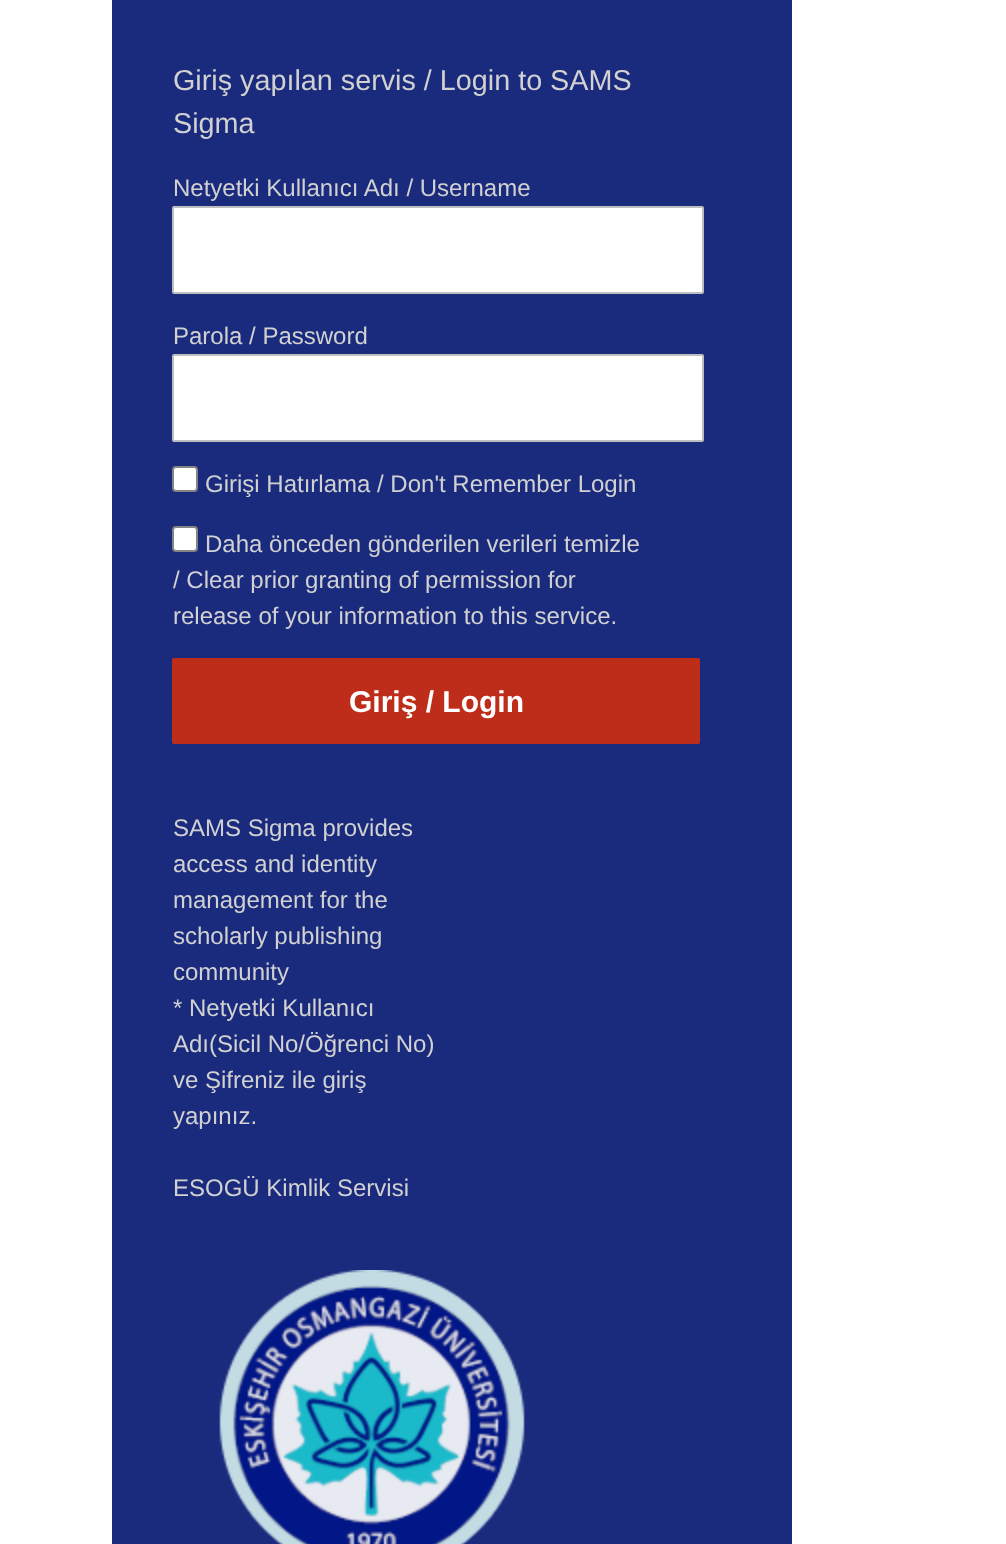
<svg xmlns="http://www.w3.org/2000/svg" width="1006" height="1544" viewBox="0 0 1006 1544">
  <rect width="100%" height="100%" fill="rgb(255,255,255)"/>
  <rect x="112" y="0" width="680" height="1544" fill="rgb(26,42,125)"/>
  <g font-family="Liberation Sans" font-size="28.75" fill="rgb(209,209,209)">
    <text>
      <tspan x="173" y="90">Giriş yapılan servis / Login to SAMS</tspan>
      <tspan x="173" y="133">Sigma</tspan>
    </text>
  </g>
  <text x="173" y="196" font-family="Liberation Sans" font-size="24" fill="rgb(209,209,209)">Netyetki Kullanıcı Adı / Username</text>
  <rect x="173" y="207" width="530" height="86" rx="1" fill="rgb(255,255,255)" stroke="rgb(190,190,190)" stroke-width="2"/>
  <text x="173" y="344" font-family="Liberation Sans" font-size="24" fill="rgb(209,209,209)">Parola / Password</text>
  <rect x="173" y="355" width="530" height="86" rx="1" fill="rgb(255,255,255)" stroke="rgb(190,190,190)" stroke-width="2"/>
  <rect x="173" y="467" width="24" height="24" rx="3" fill="rgb(255,255,255)" stroke="rgb(132,132,132)" stroke-width="2"/>
  <text x="205" y="492" font-family="Liberation Sans" font-size="24" fill="rgb(209,209,209)">Girişi Hatırlama / Don't Remember Login</text>
  <rect x="173" y="527" width="24" height="24" rx="3" fill="rgb(255,255,255)" stroke="rgb(132,132,132)" stroke-width="2"/>
  <g font-family="Liberation Sans" font-size="24" fill="rgb(209,209,209)">
    <text x="205" y="552">Daha önceden gönderilen verileri temizle</text>
    <text>
      <tspan x="173" y="588">/ Clear prior granting of permission for</tspan>
      <tspan x="173" y="624">release of your information to this service.</tspan>
    </text>
  </g>
  <rect x="172" y="658" width="528" height="86" rx="2" fill="rgb(189,45,26)"/>
  <text x="349" y="712" font-family="Liberation Sans" font-size="30" font-weight="bold" fill="rgb(255,255,255)">Giriş / Login</text>
  <g font-family="Liberation Sans" font-size="24" fill="rgb(209,209,209)">
    <text>
      <tspan x="173" y="836">SAMS Sigma provides</tspan>
      <tspan x="173" y="872">access and identity</tspan>
      <tspan x="173" y="908">management for the</tspan>
      <tspan x="173" y="944">scholarly publishing</tspan>
      <tspan x="173" y="980">community</tspan>
      <tspan x="173" y="1016">* Netyetki Kullanıcı</tspan>
      <tspan x="173" y="1052">Adı(Sicil No/Öğrenci No)</tspan>
      <tspan x="173" y="1088">ve Şifreniz ile giriş</tspan>
      <tspan x="173" y="1124">yapınız.</tspan>
    </text>
    <text x="173" y="1196">ESOGÜ Kimlik Servisi</text>
  </g>
  <image x="219" y="1270" width="306" height="274" href="pic1.png"/>
</svg>
